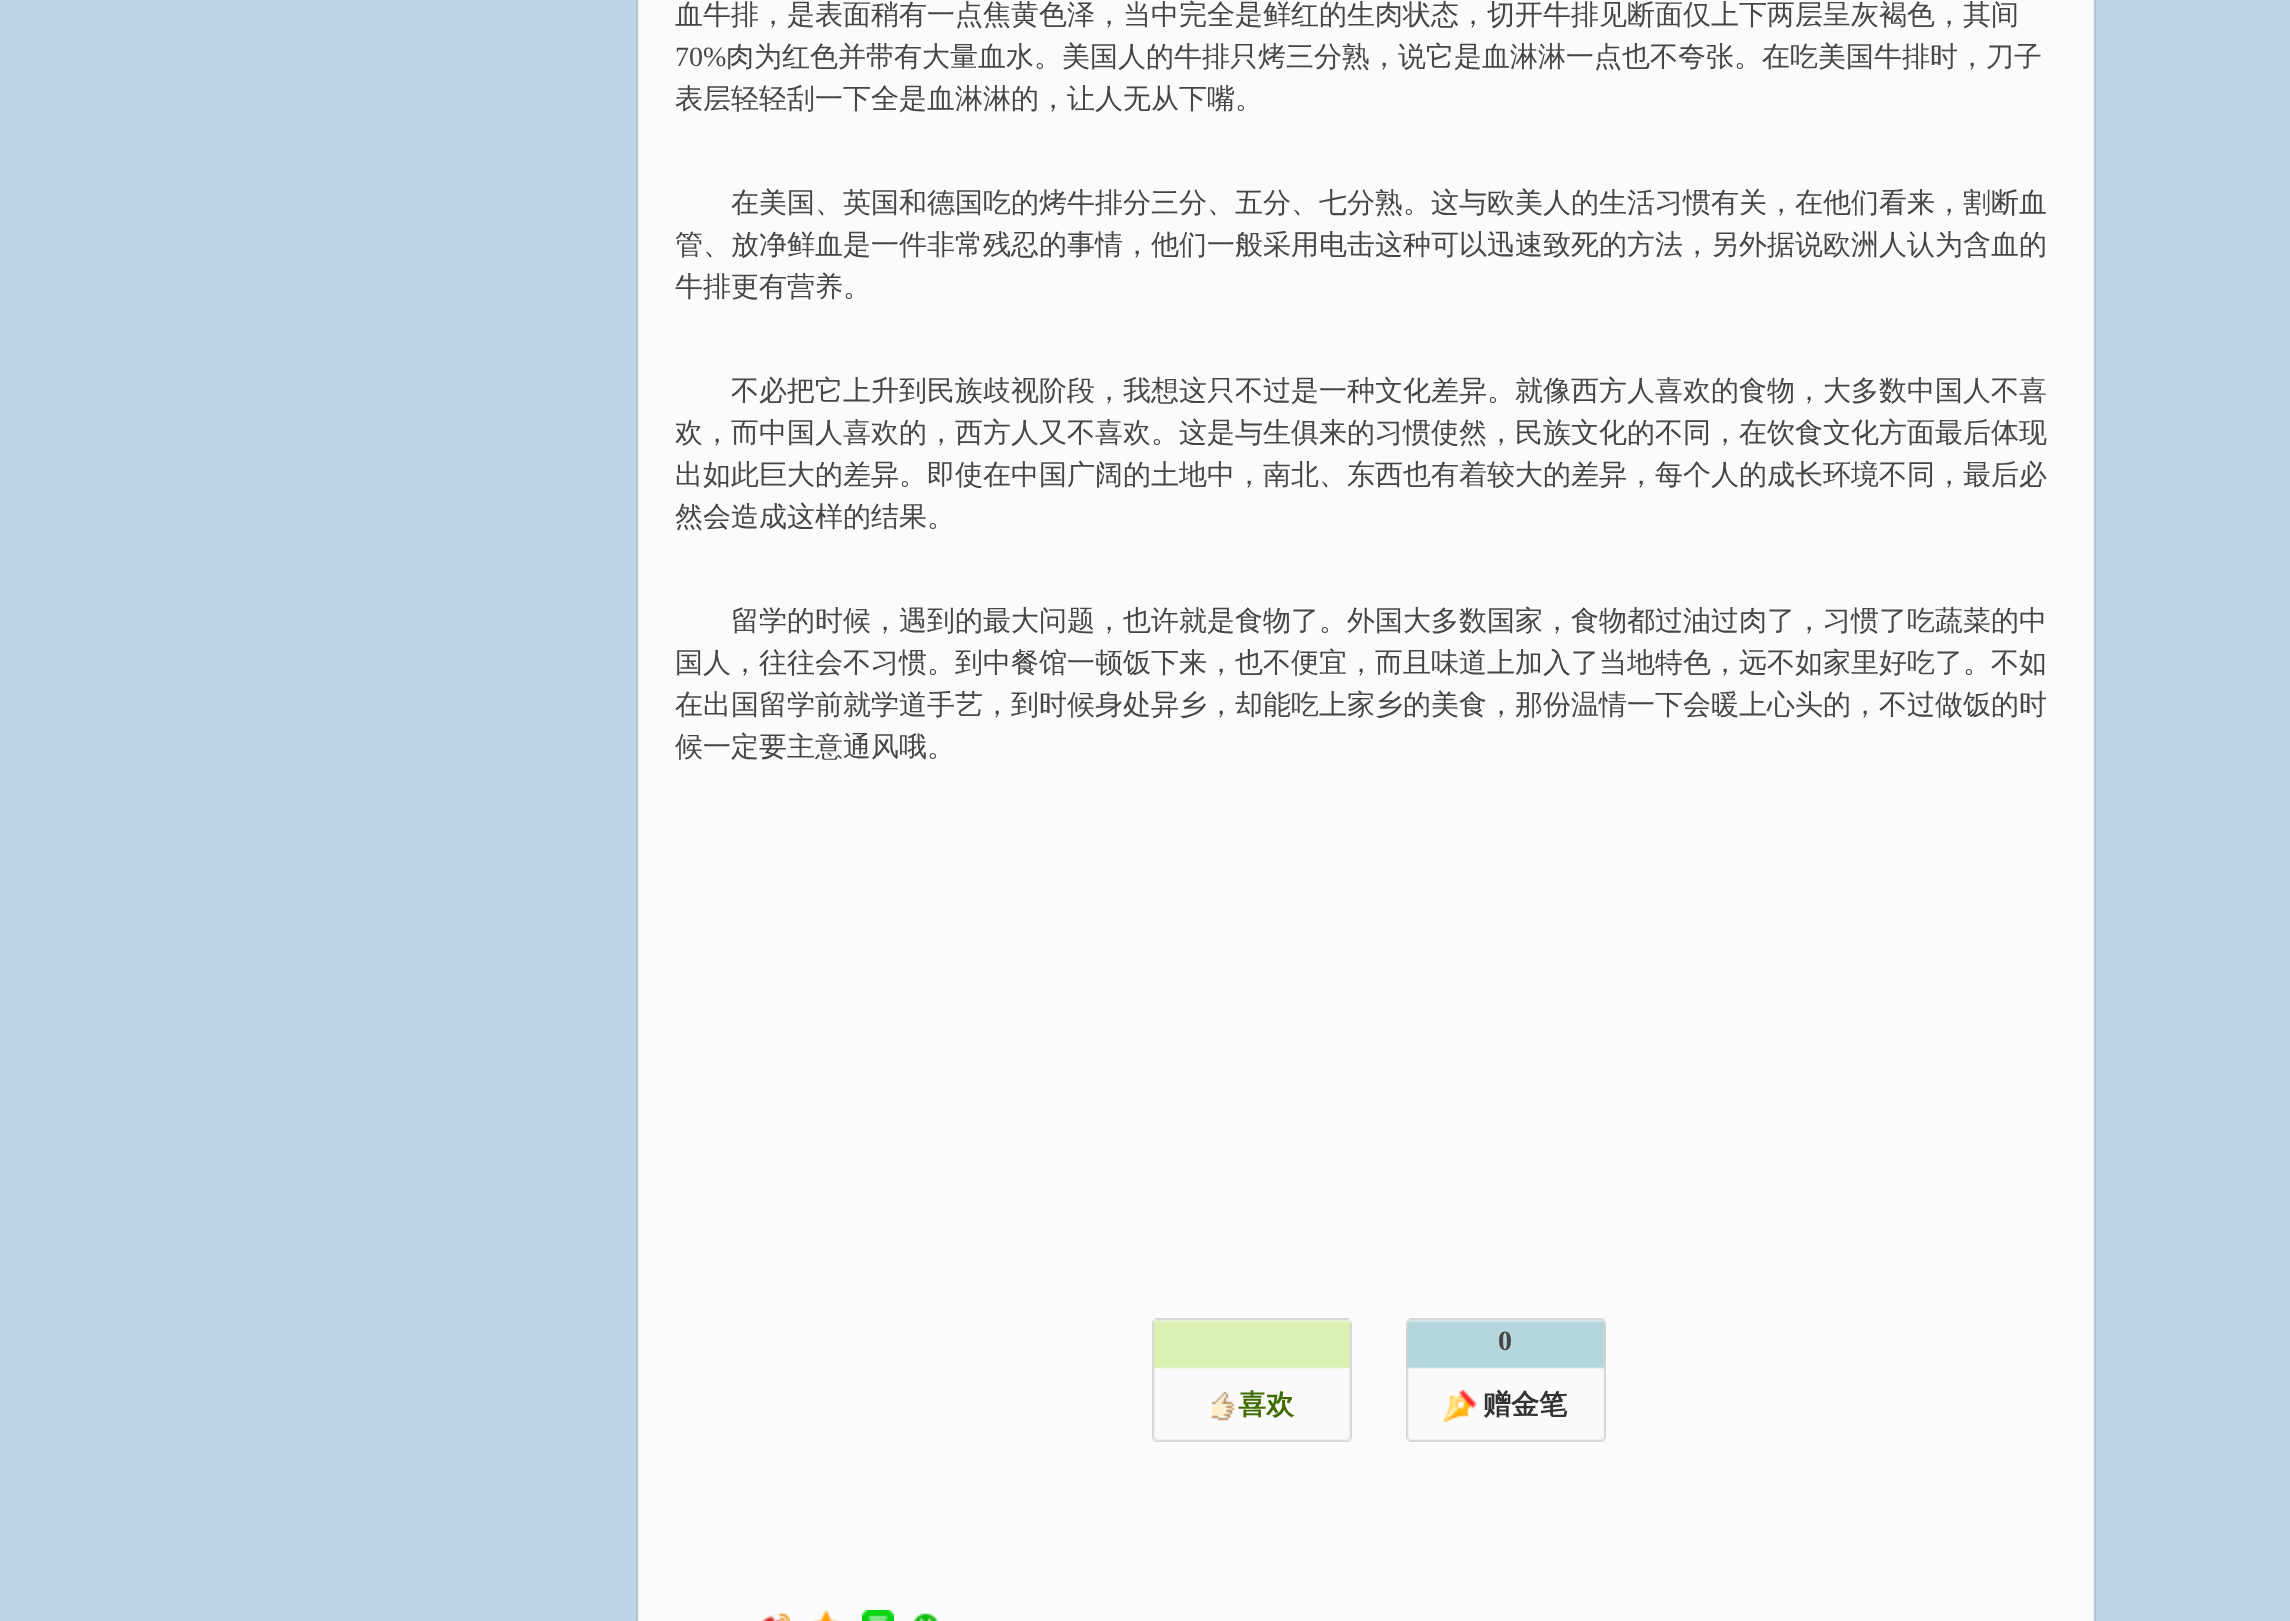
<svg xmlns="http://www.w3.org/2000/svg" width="2290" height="1621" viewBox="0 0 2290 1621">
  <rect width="100%" height="100%" fill="rgb(188,211,229)"/>
  <image x="636" y="0" width="1460" height="1621" href="pic1.png"/>
  <text x="675" y="24" font-family="WenQuanYi Zen Hei" font-size="28" font-weight="500" fill="rgb(70,70,70)">血牛排，是表面稍有一点焦黄色泽，当中完全是鲜红的生肉状态，切开牛排见断面仅上下两层呈灰褐色，其间</text>
  <text x="675" y="66" font-family="Liberation Serif" font-size="28" fill="rgb(70,70,70)">70%</text>
  <g font-family="WenQuanYi Zen Hei" font-size="28" font-weight="500" fill="rgb(70,70,70)">
    <text x="726" y="66">肉为红色并带有大量血水。美国人的牛排只烤三分熟，说它是血淋淋一点也不夸张。在吃美国牛排时，刀子</text>
    <text x="675" y="108">表层轻轻刮一下全是血淋淋的，让人无从下嘴。</text>
    <text x="731" y="212">在美国、英国和德国吃的烤牛排分三分、五分、七分熟。这与欧美人的生活习惯有关，在他们看来，割断血</text>
    <text>
      <tspan x="675" y="254">管、放净鲜血是一件非常残忍的事情，他们一般采用电击这种可以迅速致死的方法，另外据说欧洲人认为含血的</tspan>
      <tspan x="675" y="296">牛排更有营养。</tspan>
    </text>
    <text x="731" y="400">不必把它上升到民族歧视阶段，我想这只不过是一种文化差异。就像西方人喜欢的食物，大多数中国人不喜</text>
    <text>
      <tspan x="675" y="442">欢，而中国人喜欢的，西方人又不喜欢。这是与生俱来的习惯使然，民族文化的不同，在饮食文化方面最后体现</tspan>
      <tspan x="675" y="484">出如此巨大的差异。即使在中国广阔的土地中，南北、东西也有着较大的差异，每个人的成长环境不同，最后必</tspan>
      <tspan x="675" y="526">然会造成这样的结果。</tspan>
    </text>
    <text x="731" y="630">留学的时候，遇到的最大问题，也许就是食物了。外国大多数国家，食物都过油过肉了，习惯了吃蔬菜的中</text>
    <text>
      <tspan x="675" y="672">国人，往往会不习惯。到中餐馆一顿饭下来，也不便宜，而且味道上加入了当地特色，远不如家里好吃了。不如</tspan>
      <tspan x="675" y="714">在出国留学前就学道手艺，到时候身处异乡，却能吃上家乡的美食，那份温情一下会暖上心头的，不过做饭的时</tspan>
      <tspan x="675" y="756">候一定要主意通风哦。</tspan>
    </text>
  </g>
  <image x="1152" y="1318" width="200" height="124" href="pic2.png"/>
  <image x="1211" y="1392" width="24" height="29" href="pic3.png"/>
  <text x="1238" y="1414" font-family="WenQuanYi Zen Hei" font-size="28" font-weight="bold" fill="rgb(63,108,0)">喜欢</text>
  <image x="1406" y="1318" width="200" height="124" href="pic4.png"/>
  <text x="1498" y="1350" font-family="Liberation Serif" font-size="28" font-weight="bold" fill="rgb(70,70,70)">0</text>
  <image x="1444" y="1390" width="33" height="32" href="pic5.png"/>
  <text x="1483" y="1414" font-family="WenQuanYi Zen Hei" font-size="28" font-weight="bold" fill="rgb(51,51,51)">赠金笔</text>
  <image x="761" y="1612" width="29" height="9" href="pic6.png"/>
  <image x="811" y="1610" width="30" height="11" href="pic7.png"/>
  <image x="862" y="1610" width="32" height="11" href="pic8.png"/>
  <image x="914" y="1613" width="25" height="8" href="pic9.png"/>
</svg>
